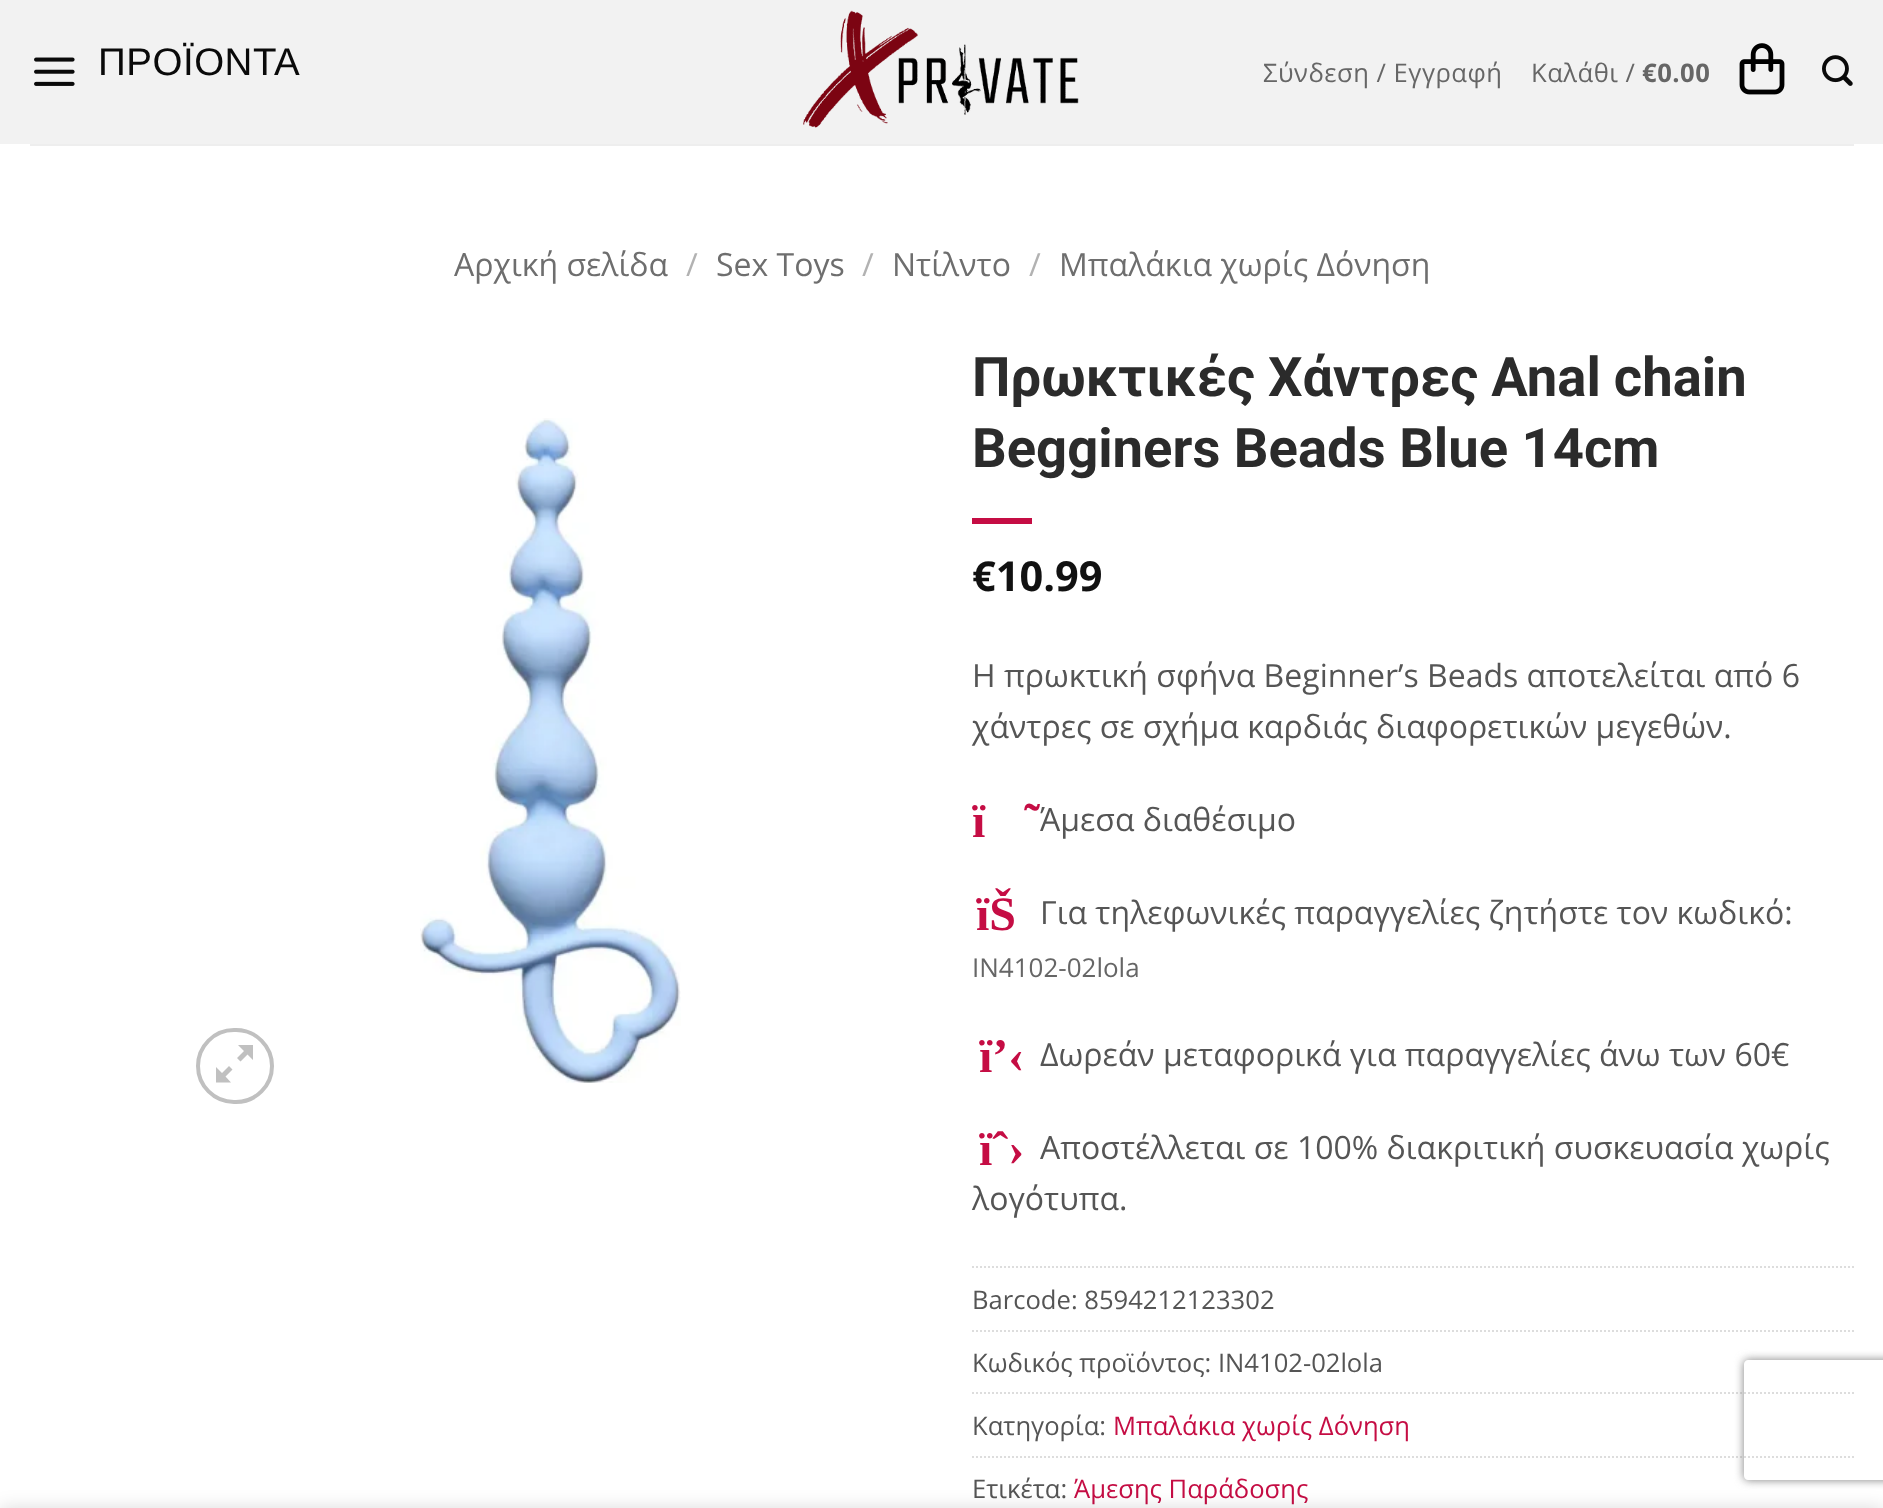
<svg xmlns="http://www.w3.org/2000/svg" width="1883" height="1508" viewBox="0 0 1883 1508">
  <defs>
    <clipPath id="clip1"><path d="M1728 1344H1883V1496H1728ZM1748 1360H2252C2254 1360 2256 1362 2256 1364V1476C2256 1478 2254 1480 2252 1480H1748C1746 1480 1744 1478 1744 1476V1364C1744 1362 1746 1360 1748 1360Z" clip-rule="evenodd"/></clipPath>
  </defs>
  <rect width="100%" height="100%" fill="rgb(255,255,255)"/>
  <rect x="0" y="0" width="1883" height="144" fill="rgb(242,242,242)"/>
  <image x="34" y="57" width="41" height="29" href="pic1.png"/>
  <text x="98" y="75" font-family="Liberation Sans" font-size="38.5" letter-spacing="0.5" fill="rgb(10,10,10)">ΠΡΟΪΟΝΤΑ</text>
  <image x="803" y="10" width="276" height="118" href="pic2.png"/>
  <g font-family="Open Sans" font-size="25.6" letter-spacing="0.5" fill="rgb(102,102,102)">
    <text x="1263" y="82">Σύνδεση / Εγγραφή</text>
    <text x="1531" y="82">Καλάθι /</text>
  </g>
  <text x="1642" y="82" font-family="Open Sans" font-size="25.6" font-weight="bold" letter-spacing="0.5" fill="rgb(102,102,102)">€0.00</text>
  <image x="1739" y="43" width="46" height="52" href="pic3.png"/>
  <image x="1822" y="55" width="31" height="31" href="pic4.png"/>
  <rect x="30" y="144" width="1824" height="2" fill="rgb(238,238,238)"/>
  <text x="454" y="276" font-family="Open Sans" font-size="32" fill="rgb(110,110,110)">Αρχική σελίδα</text>
  <text x="686" y="276" font-family="Open Sans" font-size="32" fill="rgb(178,178,178)">/</text>
  <text x="716" y="276" font-family="Open Sans" font-size="32" fill="rgb(110,110,110)">Sex Toys</text>
  <text x="862" y="276" font-family="Open Sans" font-size="32" fill="rgb(178,178,178)">/</text>
  <text x="892" y="276" font-family="Open Sans" font-size="32" fill="rgb(110,110,110)">Ντίλντο</text>
  <text x="1029" y="276" font-family="Open Sans" font-size="32" fill="rgb(178,178,178)">/</text>
  <text x="1059" y="276" font-family="Open Sans" font-size="32" fill="rgb(110,110,110)">Μπαλάκια χωρίς Δόνηση</text>
  <rect x="198" y="1030" width="74" height="72" rx="36" fill="none" stroke="rgb(192,192,192)" stroke-width="4"/>
  <path d="M253 1045V1060L247.5 1054.5L240.5 1061.5L237 1058L244 1051L238 1045ZM232.5 1069.5L225.5 1076.5L231 1082.5H216V1067L222 1073L229 1066Z" fill="rgb(192,192,192)"/>
  <image x="420" y="418" width="261" height="665" href="pic5.png"/>
  <g font-family="Roboto" font-size="54.4" font-weight="bold" fill="rgb(43,43,43)">
    <text>
      <tspan x="972" y="396" word-spacing="-0.5">Πρωκτικές Χάντρες Anal chain</tspan>
      <tspan x="972" y="467">Begginers Beads Blue 14cm</tspan>
    </text>
  </g>
  <rect x="972" y="518" width="60" height="6" fill="rgb(197,13,68)"/>
  <text x="972" y="591" font-family="Open Sans" font-size="41.5" font-weight="bold" fill="rgb(17,17,17)">€10.99</text>
  <g font-family="Open Sans" font-size="32" fill="rgb(85,85,85)">
    <text>
      <tspan x="972" y="687">Η πρωκτική σφήνα Beginner’s Beads αποτελείται από 6</tspan>
      <tspan x="972" y="738">χάντρες σε σχήμα καρδιάς διαφορετικών μεγεθών.</tspan>
    </text>
  </g>
  <g font-family="Liberation Serif" font-size="48" font-weight="bold" fill="rgb(197,13,68)">
    <text x="972" y="837">ï</text>
    <text x="1024" y="837">˜</text>
  </g>
  <text x="1040" y="831" font-family="Open Sans" font-size="32" fill="rgb(85,85,85)">Άμεσα διαθέσιμο</text>
  <text x="976" y="930" font-family="Liberation Serif" font-size="48" font-weight="bold" fill="rgb(197,13,68)">ïŠ</text>
  <text x="1040" y="924" font-family="Open Sans" font-size="32" fill="rgb(85,85,85)">Για τηλεφωνικές παραγγελίες ζητήστε τον κωδικό:</text>
  <text x="972" y="977" font-family="Open Sans" font-size="26" fill="rgb(102,102,102)">IN4102-02lola</text>
  <text x="979" y="1072" font-family="Liberation Serif" font-size="48" font-weight="bold" fill="rgb(197,13,68)">ï’‹</text>
  <text x="1040" y="1066" font-family="Open Sans" font-size="32" fill="rgb(85,85,85)">Δωρεάν μεταφορικά για παραγγελίες άνω των 60€</text>
  <text x="979" y="1165" font-family="Liberation Serif" font-size="48" font-weight="bold" fill="rgb(197,13,68)">ïˆ›</text>
  <g font-family="Open Sans" font-size="32" fill="rgb(85,85,85)">
    <text x="1040" y="1159">Αποστέλλεται σε 100% διακριτική συσκευασία χωρίς</text>
    <text x="972" y="1210">λογότυπα.</text>
  </g>
  <path d="M972 1267H1854" fill="none" stroke="rgb(221,221,221)" stroke-width="2" stroke-dasharray="2 2"/>
  <text x="972" y="1309" font-family="Open Sans" font-size="25.6" fill="rgb(85,85,85)">Barcode: 8594212123302</text>
  <path d="M972 1331H1854" fill="none" stroke="rgb(221,221,221)" stroke-width="2" stroke-dasharray="2 2"/>
  <text x="972" y="1372" font-family="Open Sans" font-size="25.6" fill="rgb(85,85,85)">Κωδικός προϊόντος: IN4102-02lola</text>
  <path d="M972 1393H1854" fill="none" stroke="rgb(221,221,221)" stroke-width="2" stroke-dasharray="2 2"/>
  <text x="972" y="1435" font-family="Open Sans" font-size="25.6" fill="rgb(85,85,85)">Κατηγορία:</text>
  <text x="1113" y="1435" font-family="Open Sans" font-size="25.6" fill="rgb(197,13,68)">Μπαλάκια χωρίς Δόνηση</text>
  <path d="M972 1457H1854" fill="none" stroke="rgb(221,221,221)" stroke-width="2" stroke-dasharray="2 2"/>
  <text x="972" y="1498" font-family="Open Sans" font-size="25.6" fill="rgb(85,85,85)">Ετικέτα:</text>
  <text x="1074" y="1498" font-family="Open Sans" font-size="25.6" fill="rgb(197,13,68)">Άμεσης Παράδοσης</text>
  <g clip-path="url(#clip1)">
    <rect x="1744" y="1360" width="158" height="120" rx="4" fill="rgb(128,128,128)" filter="blur(5px)"/>
  </g>
  <rect x="0" y="1508" width="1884" height="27" fill="rgba(0,0,0,0.14)" filter="blur(9px)"/>
</svg>
